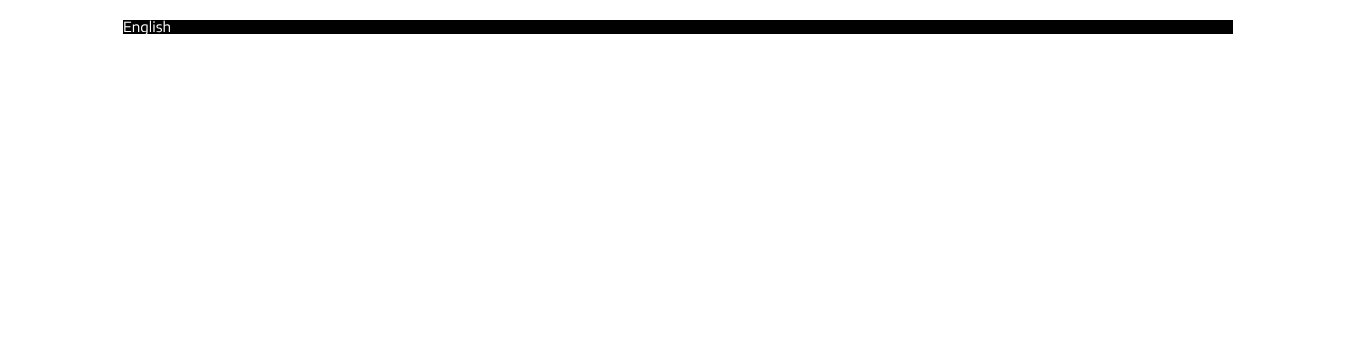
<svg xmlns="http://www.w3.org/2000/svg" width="1355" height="340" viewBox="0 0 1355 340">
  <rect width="100%" height="100%" fill="rgb(255,255,255)"/>
  <rect x="123" y="20" width="1110" height="14" fill="rgb(1,1,1)"/>
  <text x="123" y="32" font-family="Encode Sans Semi Expanded" font-size="14" fill="rgb(255,255,255)">English</text>
</svg>
